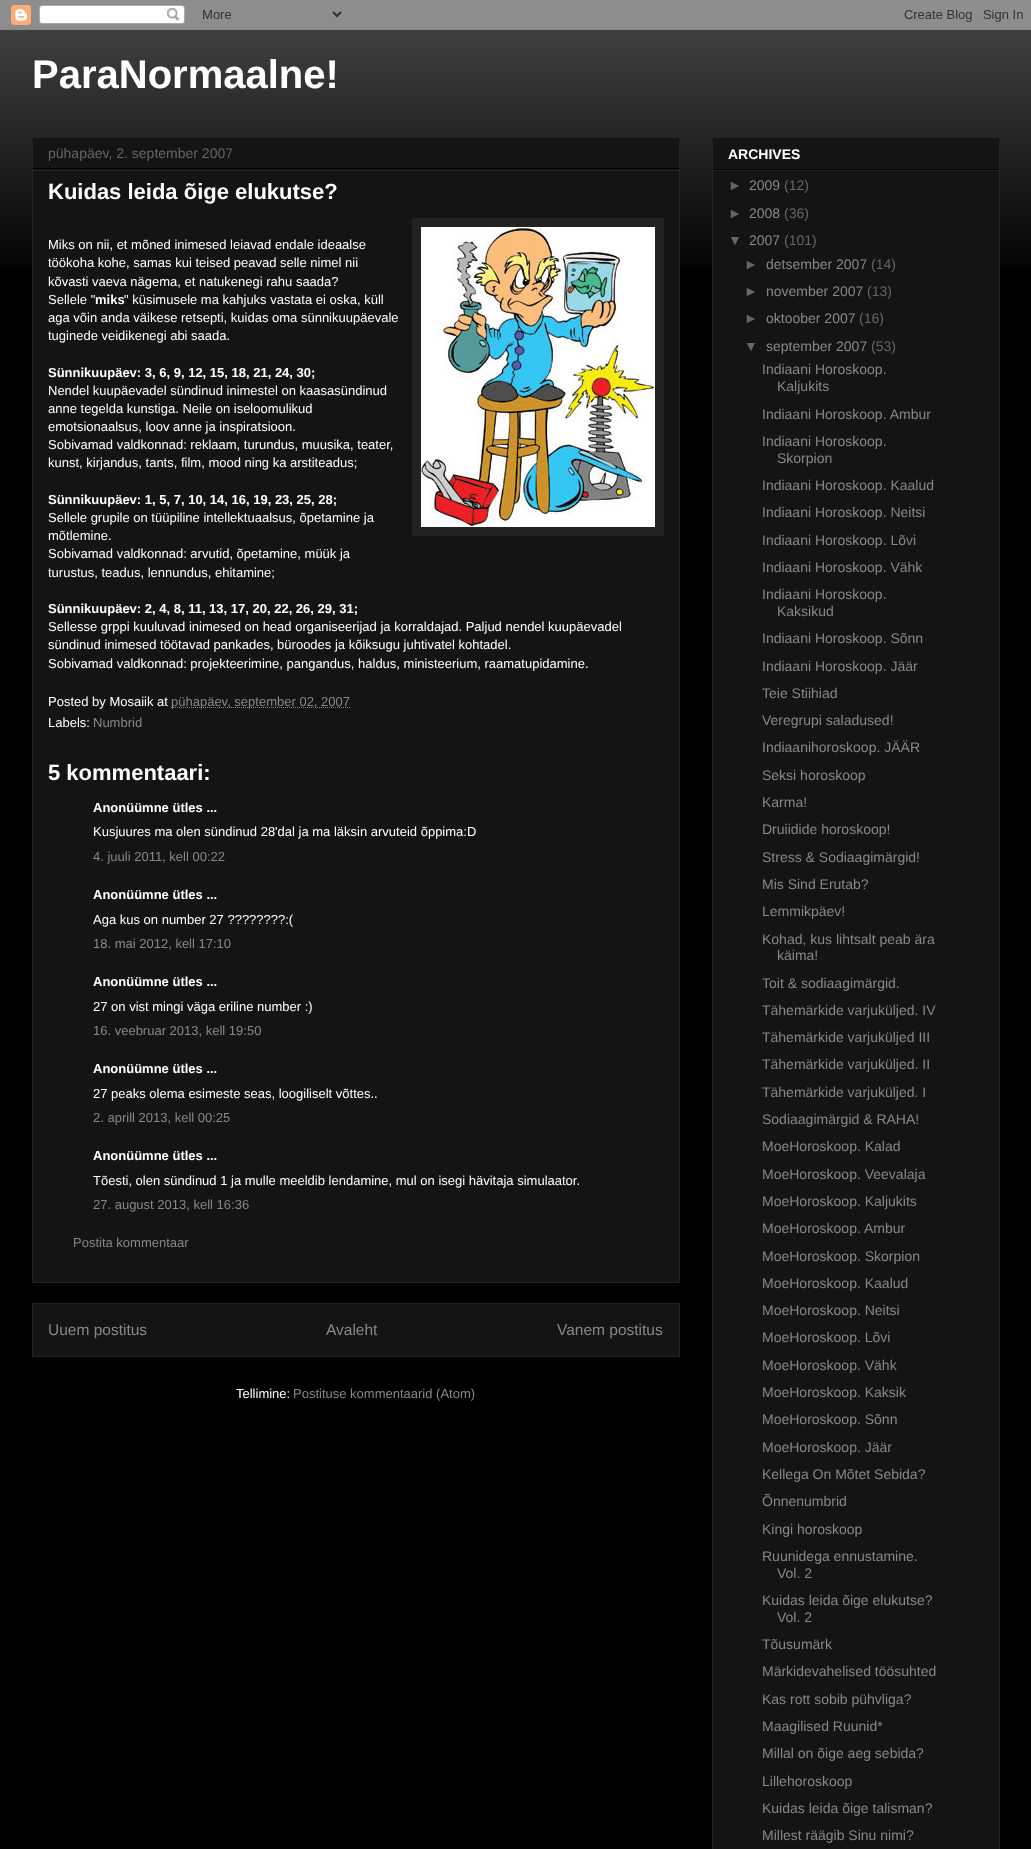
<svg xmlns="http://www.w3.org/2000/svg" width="1031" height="1849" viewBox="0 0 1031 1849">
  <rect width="100%" height="100%" fill="rgb(0,0,0)"/>
  <image x="0" y="0" width="1031" height="268" href="pic1.png"/>
  <image x="0" y="0" width="1031" height="30" href="pic2.png"/>
  <text x="32" y="88" font-family="Liberation Sans" font-size="40" font-weight="bold" fill="rgb(255,255,255)">ParaNormaalne!</text>
  <rect x="32.5" y="137.5" width="647" height="1145" fill="rgb(20,20,20)" stroke="rgb(34,34,34)"/>
  <rect x="33" y="168" width="646" height="1" fill="rgb(0,0,0)"/>
  <text x="48" y="158" font-family="Liberation Sans" font-size="14" fill="rgb(102,102,102)">pühapäev, 2. september 2007</text>
  <rect x="33" y="170" width="646" height="1" fill="rgb(34,34,34)"/>
  <text x="48" y="199" font-family="Liberation Sans" font-size="22" font-weight="bold" fill="rgb(255,255,255)">Kuidas leida õige elukutse?</text>
  <text x="48" y="249" font-family="Liberation Sans" font-size="13" fill="rgb(255,255,255)">Miks on nii, et mõned inimesed leiavad endale ideaalse</text>
  <rect x="412" y="218" width="252" height="318" fill="rgb(34,34,34)"/>
  <image x="421" y="227" width="234" height="300" href="pic3.png"/>
  <g font-family="Liberation Sans" font-size="13" fill="rgb(255,255,255)">
    <text>
      <tspan x="48" y="267">töökoha kohe, samas kui teised peavad selle nimel nii</tspan>
      <tspan x="48" y="286">kõvasti vaeva nägema, et natukenegi rahu saada?</tspan>
      <tspan x="48" y="304">Sellele "</tspan>
    </text>
  </g>
  <text x="95" y="304" font-family="Liberation Sans" font-size="13" font-weight="bold" fill="rgb(255,255,255)">miks</text>
  <g font-family="Liberation Sans" font-size="13" fill="rgb(255,255,255)">
    <text x="124" y="304">" küsimusele ma kahjuks vastata ei oska, küll</text>
    <text>
      <tspan x="48" y="322">aga võin anda väikese retsepti, kuidas oma sünnikuupäevale</tspan>
      <tspan x="48" y="340">tuginede veidikenegi abi saada.</tspan>
    </text>
  </g>
  <text x="48" y="377" font-family="Liberation Sans" font-size="13" font-weight="bold" fill="rgb(255,255,255)">Sünnikuupäev: 3, 6, 9, 12, 15, 18, 21, 24, 30;</text>
  <g font-family="Liberation Sans" font-size="13" fill="rgb(255,255,255)">
    <text>
      <tspan x="48" y="395">Nendel kuupäevadel sündinud inimestel on kaasasündinud</tspan>
      <tspan x="48" y="413">anne tegelda kunstiga. Neile on iseloomulikud</tspan>
      <tspan x="48" y="431">emotsionaalsus, loov anne ja inspiratsioon.</tspan>
      <tspan x="48" y="449">Sobivamad valdkonnad: reklaam, turundus, muusika, teater,</tspan>
      <tspan x="48" y="467">kunst, kirjandus, tants, film, mood ning ka arstiteadus;</tspan>
    </text>
  </g>
  <text x="48" y="504" font-family="Liberation Sans" font-size="13" font-weight="bold" fill="rgb(255,255,255)">Sünnikuupäev: 1, 5, 7, 10, 14, 16, 19, 23, 25, 28;</text>
  <g font-family="Liberation Sans" font-size="13" fill="rgb(255,255,255)">
    <text>
      <tspan x="48" y="522">Sellele grupile on tüüpiline intellektuaalsus, õpetamine ja</tspan>
      <tspan x="48" y="540">mõtlemine.</tspan>
      <tspan x="48" y="558">Sobivamad valdkonnad: arvutid, õpetamine, müük ja</tspan>
      <tspan x="48" y="577">turustus, teadus, lennundus, ehitamine;</tspan>
    </text>
  </g>
  <text x="48" y="613" font-family="Liberation Sans" font-size="13" font-weight="bold" fill="rgb(255,255,255)">Sünnikuupäev: 2, 4, 8, 11, 13, 17, 20, 22, 26, 29, 31;</text>
  <g font-family="Liberation Sans" font-size="13" fill="rgb(255,255,255)">
    <text>
      <tspan x="48" y="631">Sellesse grppi kuuluvad inimesed on head organiseerijad ja korraldajad. Paljud nendel kuupäevadel</tspan>
      <tspan x="48" y="649">sündinud inimesed töötavad pankades, büroodes ja kõiksugu juhtivatel kohtadel.</tspan>
      <tspan x="48" y="668">Sobivamad valdkonnad: projekteerimine, pangandus, haldus, ministeerium, raamatupidamine.</tspan>
    </text>
    <text x="48" y="706">Posted by Mosaiik at</text>
  </g>
  <path d="M171 707.5H350" fill="none" stroke="rgb(136,136,136)" stroke-dasharray="1 1"/>
  <text x="171" y="706" font-family="Liberation Sans" font-size="13" fill="rgb(136,136,136)">pühapäev, september 02, 2007</text>
  <text x="48" y="727" font-family="Liberation Sans" font-size="13" fill="rgb(255,255,255)">Labels:</text>
  <text x="93" y="727" font-family="Liberation Sans" font-size="13" fill="rgb(136,136,136)">Numbrid</text>
  <text x="48" y="780" font-family="Liberation Sans" font-size="22" font-weight="bold" fill="rgb(255,255,255)">5 kommentaari:</text>
  <text x="93" y="812" font-family="Liberation Sans" font-size="13" font-weight="bold" fill="rgb(255,255,255)">Anonüümne ütles ...</text>
  <text x="93" y="836" font-family="Liberation Sans" font-size="13" fill="rgb(255,255,255)">Kusjuures ma olen sündinud 28'dal ja ma läksin arvuteid õppima:D</text>
  <text x="93" y="861" font-family="Liberation Sans" font-size="13" fill="rgb(136,136,136)">4. juuli 2011, kell 00:22</text>
  <text x="93" y="899" font-family="Liberation Sans" font-size="13" font-weight="bold" fill="rgb(255,255,255)">Anonüümne ütles ...</text>
  <text x="93" y="924" font-family="Liberation Sans" font-size="13" fill="rgb(255,255,255)">Aga kus on number 27 ????????:(</text>
  <text x="93" y="948" font-family="Liberation Sans" font-size="13" fill="rgb(136,136,136)">18. mai 2012, kell 17:10</text>
  <text x="93" y="986" font-family="Liberation Sans" font-size="13" font-weight="bold" fill="rgb(255,255,255)">Anonüümne ütles ...</text>
  <text x="93" y="1011" font-family="Liberation Sans" font-size="13" fill="rgb(255,255,255)">27 on vist mingi väga eriline number :)</text>
  <text x="93" y="1035" font-family="Liberation Sans" font-size="13" fill="rgb(136,136,136)">16. veebruar 2013, kell 19:50</text>
  <text x="93" y="1073" font-family="Liberation Sans" font-size="13" font-weight="bold" fill="rgb(255,255,255)">Anonüümne ütles ...</text>
  <text x="93" y="1098" font-family="Liberation Sans" font-size="13" fill="rgb(255,255,255)">27 peaks olema esimeste seas, loogiliselt võttes..</text>
  <text x="93" y="1122" font-family="Liberation Sans" font-size="13" fill="rgb(136,136,136)">2. aprill 2013, kell 00:25</text>
  <text x="93" y="1160" font-family="Liberation Sans" font-size="13" font-weight="bold" fill="rgb(255,255,255)">Anonüümne ütles ...</text>
  <text x="93" y="1185" font-family="Liberation Sans" font-size="13" fill="rgb(255,255,255)">Tõesti, olen sündinud 1 ja mulle meeldib lendamine, mul on isegi hävitaja simulaator.</text>
  <g font-family="Liberation Sans" font-size="13" fill="rgb(136,136,136)">
    <text x="93" y="1209">27. august 2013, kell 16:36</text>
    <text x="73" y="1247">Postita kommentaar</text>
  </g>
  <rect x="32.5" y="1303.5" width="647" height="53" fill="rgb(20,20,20)" stroke="rgb(34,34,34)"/>
  <g font-family="Liberation Sans" font-size="15.5" fill="rgb(136,136,136)">
    <text x="48" y="1335">Uuem postitus</text>
    <text x="326" y="1335">Avaleht</text>
    <text x="557" y="1335">Vanem postitus</text>
  </g>
  <text x="236" y="1398" font-family="Liberation Sans" font-size="13" fill="rgb(255,255,255)">Tellimine:</text>
  <text x="293" y="1398" font-family="Liberation Sans" font-size="13" fill="rgb(136,136,136)">Postituse kommentaarid (Atom)</text>
  <rect x="712.5" y="137.5" width="287" height="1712" fill="rgb(20,20,20)" stroke="rgb(34,34,34)"/>
  <rect x="713" y="169" width="286" height="1" fill="rgb(0,0,0)"/>
  <text x="728" y="159" font-family="Liberation Sans" font-size="14" font-weight="bold" fill="rgb(255,255,255)">ARCHIVES</text>
  <rect x="713" y="170" width="286" height="1" fill="rgb(34,34,34)"/>
  <text x="728" y="190" font-family="Liberation Sans" font-size="14" fill="rgb(102,102,102)">►</text>
  <text x="749" y="190" font-family="Liberation Sans" font-size="14" fill="rgb(136,136,136)">2009</text>
  <g font-family="Liberation Sans" font-size="14" fill="rgb(102,102,102)">
    <text x="784" y="190">(12)</text>
    <text x="728" y="218">►</text>
  </g>
  <text x="749" y="218" font-family="Liberation Sans" font-size="14" fill="rgb(136,136,136)">2008</text>
  <g font-family="Liberation Sans" font-size="14" fill="rgb(102,102,102)">
    <text x="784" y="218">(36)</text>
    <text x="728" y="245">▼</text>
  </g>
  <text x="749" y="245" font-family="Liberation Sans" font-size="14" fill="rgb(136,136,136)">2007</text>
  <g font-family="Liberation Sans" font-size="14" fill="rgb(102,102,102)">
    <text x="784" y="245">(101)</text>
    <text x="744" y="269">►</text>
  </g>
  <text x="766" y="269" font-family="Liberation Sans" font-size="14" fill="rgb(136,136,136)">detsember 2007</text>
  <g font-family="Liberation Sans" font-size="14" fill="rgb(102,102,102)">
    <text x="871" y="269">(14)</text>
    <text x="744" y="296">►</text>
  </g>
  <text x="766" y="296" font-family="Liberation Sans" font-size="14" fill="rgb(136,136,136)">november 2007</text>
  <g font-family="Liberation Sans" font-size="14" fill="rgb(102,102,102)">
    <text x="867" y="296">(13)</text>
    <text x="744" y="323">►</text>
  </g>
  <text x="766" y="323" font-family="Liberation Sans" font-size="14" fill="rgb(136,136,136)">oktoober 2007</text>
  <g font-family="Liberation Sans" font-size="14" fill="rgb(102,102,102)">
    <text x="859" y="323">(16)</text>
    <text x="744" y="351">▼</text>
  </g>
  <text x="766" y="351" font-family="Liberation Sans" font-size="14" fill="rgb(136,136,136)">september 2007</text>
  <text x="871" y="351" font-family="Liberation Sans" font-size="14" fill="rgb(102,102,102)">(53)</text>
  <g font-family="Liberation Sans" font-size="14" fill="rgb(136,136,136)">
    <text x="762" y="374">Indiaani Horoskoop.</text>
    <text x="777" y="391">Kaljukits</text>
    <text>
      <tspan x="762" y="419">Indiaani Horoskoop. Ambur</tspan>
      <tspan x="762" y="446">Indiaani Horoskoop.</tspan>
    </text>
    <text x="777" y="463">Skorpion</text>
    <text>
      <tspan x="762" y="490">Indiaani Horoskoop. Kaalud</tspan>
      <tspan x="762" y="517">Indiaani Horoskoop. Neitsi</tspan>
    </text>
    <text>
      <tspan x="762" y="545">Indiaani Horoskoop. Lõvi</tspan>
      <tspan x="762" y="572">Indiaani Horoskoop. Vähk</tspan>
      <tspan x="762" y="599">Indiaani Horoskoop.</tspan>
    </text>
    <text x="777" y="616">Kaksikud</text>
    <text x="762" y="643">Indiaani Horoskoop. Sõnn</text>
    <text>
      <tspan x="762" y="671">Indiaani Horoskoop. Jäär</tspan>
      <tspan x="762" y="698">Teie Stiihiad</tspan>
      <tspan x="762" y="725">Veregrupi saladused!</tspan>
      <tspan x="762" y="752">Indiaanihoroskoop. JÄÄR</tspan>
    </text>
    <text>
      <tspan x="762" y="780">Seksi horoskoop</tspan>
      <tspan x="762" y="807">Karma!</tspan>
      <tspan x="762" y="834">Druiidide horoskoop!</tspan>
    </text>
    <text>
      <tspan x="762" y="862">Stress &amp; Sodiaagimärgid!</tspan>
      <tspan x="762" y="889">Mis Sind Erutab?</tspan>
      <tspan x="762" y="916">Lemmikpäev!</tspan>
    </text>
    <text x="762" y="944">Kohad, kus lihtsalt peab ära</text>
    <text x="777" y="960">käima!</text>
    <text>
      <tspan x="762" y="988">Toit &amp; sodiaagimärgid.</tspan>
      <tspan x="762" y="1015">Tähemärkide varjuküljed. IV</tspan>
      <tspan x="762" y="1042">Tähemärkide varjuküljed III</tspan>
      <tspan x="762" y="1069">Tähemärkide varjuküljed. II</tspan>
    </text>
    <text>
      <tspan x="762" y="1097">Tähemärkide varjuküljed. I</tspan>
      <tspan x="762" y="1124">Sodiaagimärgid &amp; RAHA!</tspan>
      <tspan x="762" y="1151">MoeHoroskoop. Kalad</tspan>
    </text>
    <text>
      <tspan x="762" y="1179">MoeHoroskoop. Veevalaja</tspan>
      <tspan x="762" y="1206">MoeHoroskoop. Kaljukits</tspan>
      <tspan x="762" y="1233">MoeHoroskoop. Ambur</tspan>
    </text>
    <text>
      <tspan x="762" y="1261">MoeHoroskoop. Skorpion</tspan>
      <tspan x="762" y="1288">MoeHoroskoop. Kaalud</tspan>
      <tspan x="762" y="1315">MoeHoroskoop. Neitsi</tspan>
      <tspan x="762" y="1342">MoeHoroskoop. Lõvi</tspan>
    </text>
    <text>
      <tspan x="762" y="1370">MoeHoroskoop. Vähk</tspan>
      <tspan x="762" y="1397">MoeHoroskoop. Kaksik</tspan>
      <tspan x="762" y="1424">MoeHoroskoop. Sõnn</tspan>
    </text>
    <text>
      <tspan x="762" y="1452">MoeHoroskoop. Jäär</tspan>
      <tspan x="762" y="1479">Kellega On Mõtet Sebida?</tspan>
      <tspan x="762" y="1506">Õnnenumbrid</tspan>
    </text>
    <text>
      <tspan x="762" y="1534">Kingi horoskoop</tspan>
      <tspan x="762" y="1561">Ruunidega ennustamine.</tspan>
    </text>
    <text x="777" y="1578">Vol. 2</text>
    <text x="762" y="1605">Kuidas leida õige elukutse?</text>
    <text x="777" y="1622">Vol. 2</text>
    <text>
      <tspan x="762" y="1649">Tõusumärk</tspan>
      <tspan x="762" y="1676">Märkidevahelised töösuhted</tspan>
    </text>
    <text>
      <tspan x="762" y="1704">Kas rott sobib pühvliga?</tspan>
      <tspan x="762" y="1731">Maagilised Ruunid*</tspan>
      <tspan x="762" y="1758">Millal on õige aeg sebida?</tspan>
    </text>
    <text>
      <tspan x="762" y="1786">Lillehoroskoop</tspan>
      <tspan x="762" y="1813">Kuidas leida õige talisman?</tspan>
      <tspan x="762" y="1840">Millest räägib Sinu nimi?</tspan>
    </text>
  </g>
</svg>
